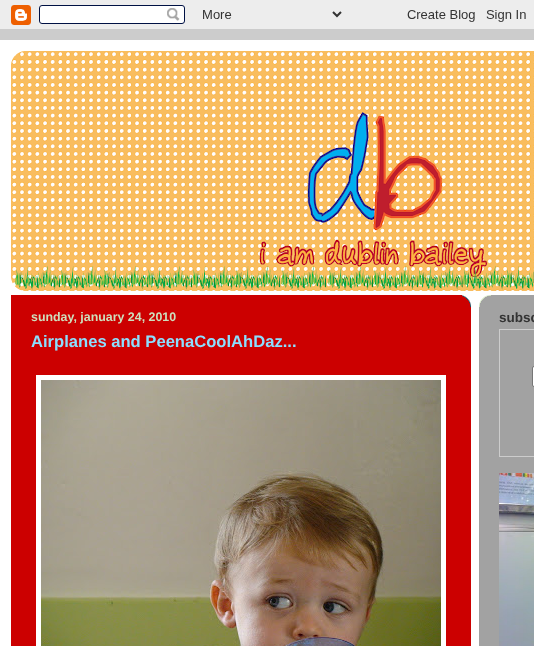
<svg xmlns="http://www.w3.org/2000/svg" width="534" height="646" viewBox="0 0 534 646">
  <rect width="100%" height="100%" fill="rgb(204,204,204)"/>
  <image x="0" y="0" width="534" height="29" href="pic1.png"/>
  <rect x="0" y="40" width="534" height="606" fill="rgb(255,255,255)"/>
  <image x="11" y="51" width="523" height="240" href="pic2.png"/>
  <rect x="11" y="295" width="460" height="351" fill="rgb(204,0,0)"/>
  <image x="462" y="295" width="9" height="12" href="pic3.png"/>
  <text x="31" y="321" font-family="Liberation Sans" font-size="12.4" font-weight="bold" fill="rgb(206,223,189)">sunday, january 24, 2010</text>
  <text x="31" y="347" font-family="Liberation Sans" font-size="16.6" font-weight="bold" fill="rgb(140,223,255)">Airplanes and PeenaCoolAhDaz...</text>
  <rect x="38.5" y="377.5" width="405" height="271" fill="none" stroke="rgb(255,255,255)" stroke-width="5"/>
  <image x="41" y="380" width="400" height="266" href="pic4.png"/>
  <rect x="479" y="295" width="55" height="351" fill="rgb(162,162,162)"/>
  <image x="479" y="295" width="12" height="12" href="pic5.png"/>
  <text x="499" y="322" font-family="Liberation Sans" font-size="13.5" font-weight="bold" fill="rgb(51,51,51)">subsc</text>
  <rect x="499.5" y="329.5" width="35" height="127" fill="none" stroke="rgb(204,204,204)"/>
  <rect x="532.5" y="366.5" width="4" height="20" rx="1.5" fill="rgb(255,255,255)" stroke="rgb(118,118,118)"/>
  <image x="499" y="473" width="35" height="173" href="pic6.png"/>
</svg>
